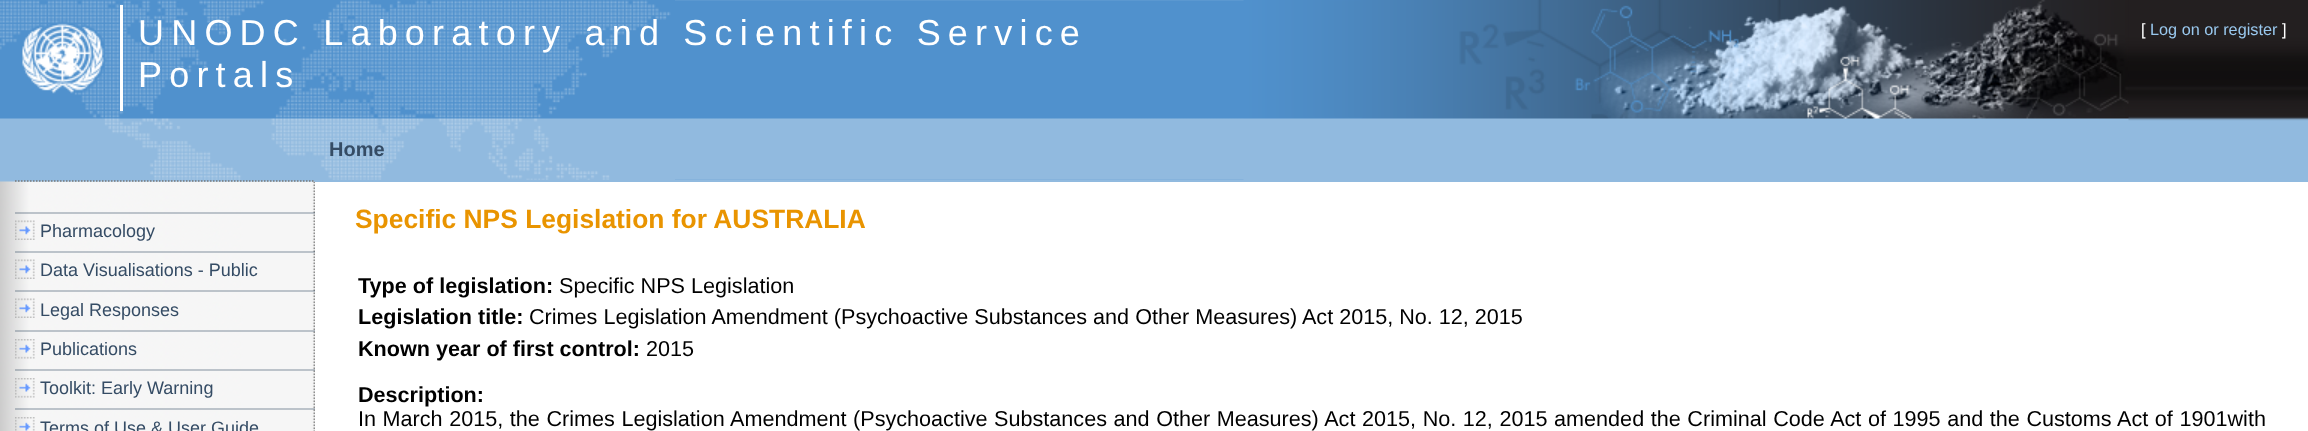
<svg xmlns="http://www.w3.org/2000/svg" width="2308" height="431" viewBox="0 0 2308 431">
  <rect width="100%" height="100%" fill="rgb(255,255,255)"/>
  <image x="675" y="0" width="569" height="180" href="pic1.png"/>
  <rect x="0" y="180" width="2308" height="2" fill="rgb(145,186,223)"/>
  <image x="0" y="0" width="675" height="180" href="pic2.png"/>
  <image x="2128" y="0" width="180" height="180" href="pic3.png"/>
  <image x="1243" y="0" width="886" height="180" href="pic4.png"/>
  <rect x="120" y="5" width="3" height="106" fill="rgb(255,255,255)"/>
  <g font-family="Liberation Sans" font-size="36" letter-spacing="7.2" fill="rgb(255,255,255)">
    <text>
      <tspan x="138" y="45">UNODC Laboratory and Scientific Service</tspan>
      <tspan x="138" y="87">Portals</tspan>
    </text>
  </g>
  <text x="2141" y="35" font-family="Liberation Sans" font-size="16.25" fill="rgb(255,255,255)">[</text>
  <text x="2150" y="35" font-family="Liberation Sans" font-size="16.25" fill="rgb(153,200,238)">Log on or register</text>
  <text x="2282" y="35" font-family="Liberation Sans" font-size="16.25" fill="rgb(255,255,255)">]</text>
  <text x="329" y="156" font-family="Liberation Sans" font-size="20" font-weight="bold" fill="rgb(53,76,101)">Home</text>
  <image x="0" y="181" width="315" height="250" href="pic5.png"/>
  <path d="M15 181H315" fill="none" stroke="rgb(121,121,121)" stroke-width="1.5" stroke-dasharray="1.5 1.5"/>
  <image x="15" y="220" width="20" height="20" href="pic6.png"/>
  <rect x="15" y="212" width="300" height="2" fill="rgba(53,76,101,0.3)"/>
  <text x="40" y="237" font-family="Liberation Sans" font-size="18" fill="rgb(53,76,101)">Pharmacology</text>
  <image x="15" y="259" width="20" height="20" href="pic7.png"/>
  <rect x="15" y="251" width="300" height="2" fill="rgba(53,76,101,0.3)"/>
  <text x="40" y="276" font-family="Liberation Sans" font-size="18" fill="rgb(53,76,101)">Data Visualisations - Public</text>
  <image x="15" y="298" width="20" height="20" href="pic8.png"/>
  <rect x="15" y="290" width="300" height="2" fill="rgba(53,76,101,0.3)"/>
  <text x="40" y="316" font-family="Liberation Sans" font-size="18" fill="rgb(53,76,101)">Legal Responses</text>
  <image x="15" y="339" width="20" height="20" href="pic9.png"/>
  <rect x="15" y="330" width="300" height="2" fill="rgba(53,76,101,0.3)"/>
  <text x="40" y="355" font-family="Liberation Sans" font-size="18" fill="rgb(53,76,101)">Publications</text>
  <image x="15" y="378" width="20" height="20" href="pic10.png"/>
  <rect x="15" y="369" width="300" height="2" fill="rgba(53,76,101,0.3)"/>
  <text x="40" y="394" font-family="Liberation Sans" font-size="18" fill="rgb(53,76,101)">Toolkit: Early Warning</text>
  <image x="15" y="417" width="20" height="14" href="pic11.png"/>
  <rect x="15" y="408" width="300" height="2" fill="rgba(53,76,101,0.3)"/>
  <text x="40" y="434" font-family="Liberation Sans" font-size="18" fill="rgb(53,76,101)">Terms of Use &amp; User Guide</text>
  <text x="355" y="228" font-family="Liberation Sans" font-size="26.4" font-weight="bold" fill="rgb(233,148,0)">Specific NPS Legislation for AUSTRALIA</text>
  <text x="358" y="293" font-family="Liberation Sans" font-size="21.6" font-weight="bold" fill="rgb(0,0,0)">Type of legislation:</text>
  <text x="559" y="293" font-family="Liberation Sans" font-size="21.6" fill="rgb(0,0,0)">Specific NPS Legislation</text>
  <text x="358" y="324" font-family="Liberation Sans" font-size="21.6" font-weight="bold" fill="rgb(0,0,0)">Legislation title:</text>
  <text x="529" y="324" font-family="Liberation Sans" font-size="21.6" fill="rgb(0,0,0)">Crimes Legislation Amendment (Psychoactive Substances and Other Measures) Act 2015, No. 12, 2015</text>
  <text x="358" y="356" font-family="Liberation Sans" font-size="21.6" font-weight="bold" fill="rgb(0,0,0)">Known year of first control:</text>
  <text x="646" y="356" font-family="Liberation Sans" font-size="21.6" fill="rgb(0,0,0)">2015</text>
  <text x="358" y="402" font-family="Liberation Sans" font-size="21.6" font-weight="bold" fill="rgb(0,0,0)">Description:</text>
  <text x="358" y="426" word-spacing="0.6" font-family="Liberation Sans" font-size="21.6" fill="rgb(0,0,0)">In March 2015, the Crimes Legislation Amendment (Psychoactive Substances and Other Measures) Act 2015, No. 12, 2015 amended the Criminal Code Act of 1995 and the Customs Act of 1901with</text>
</svg>
